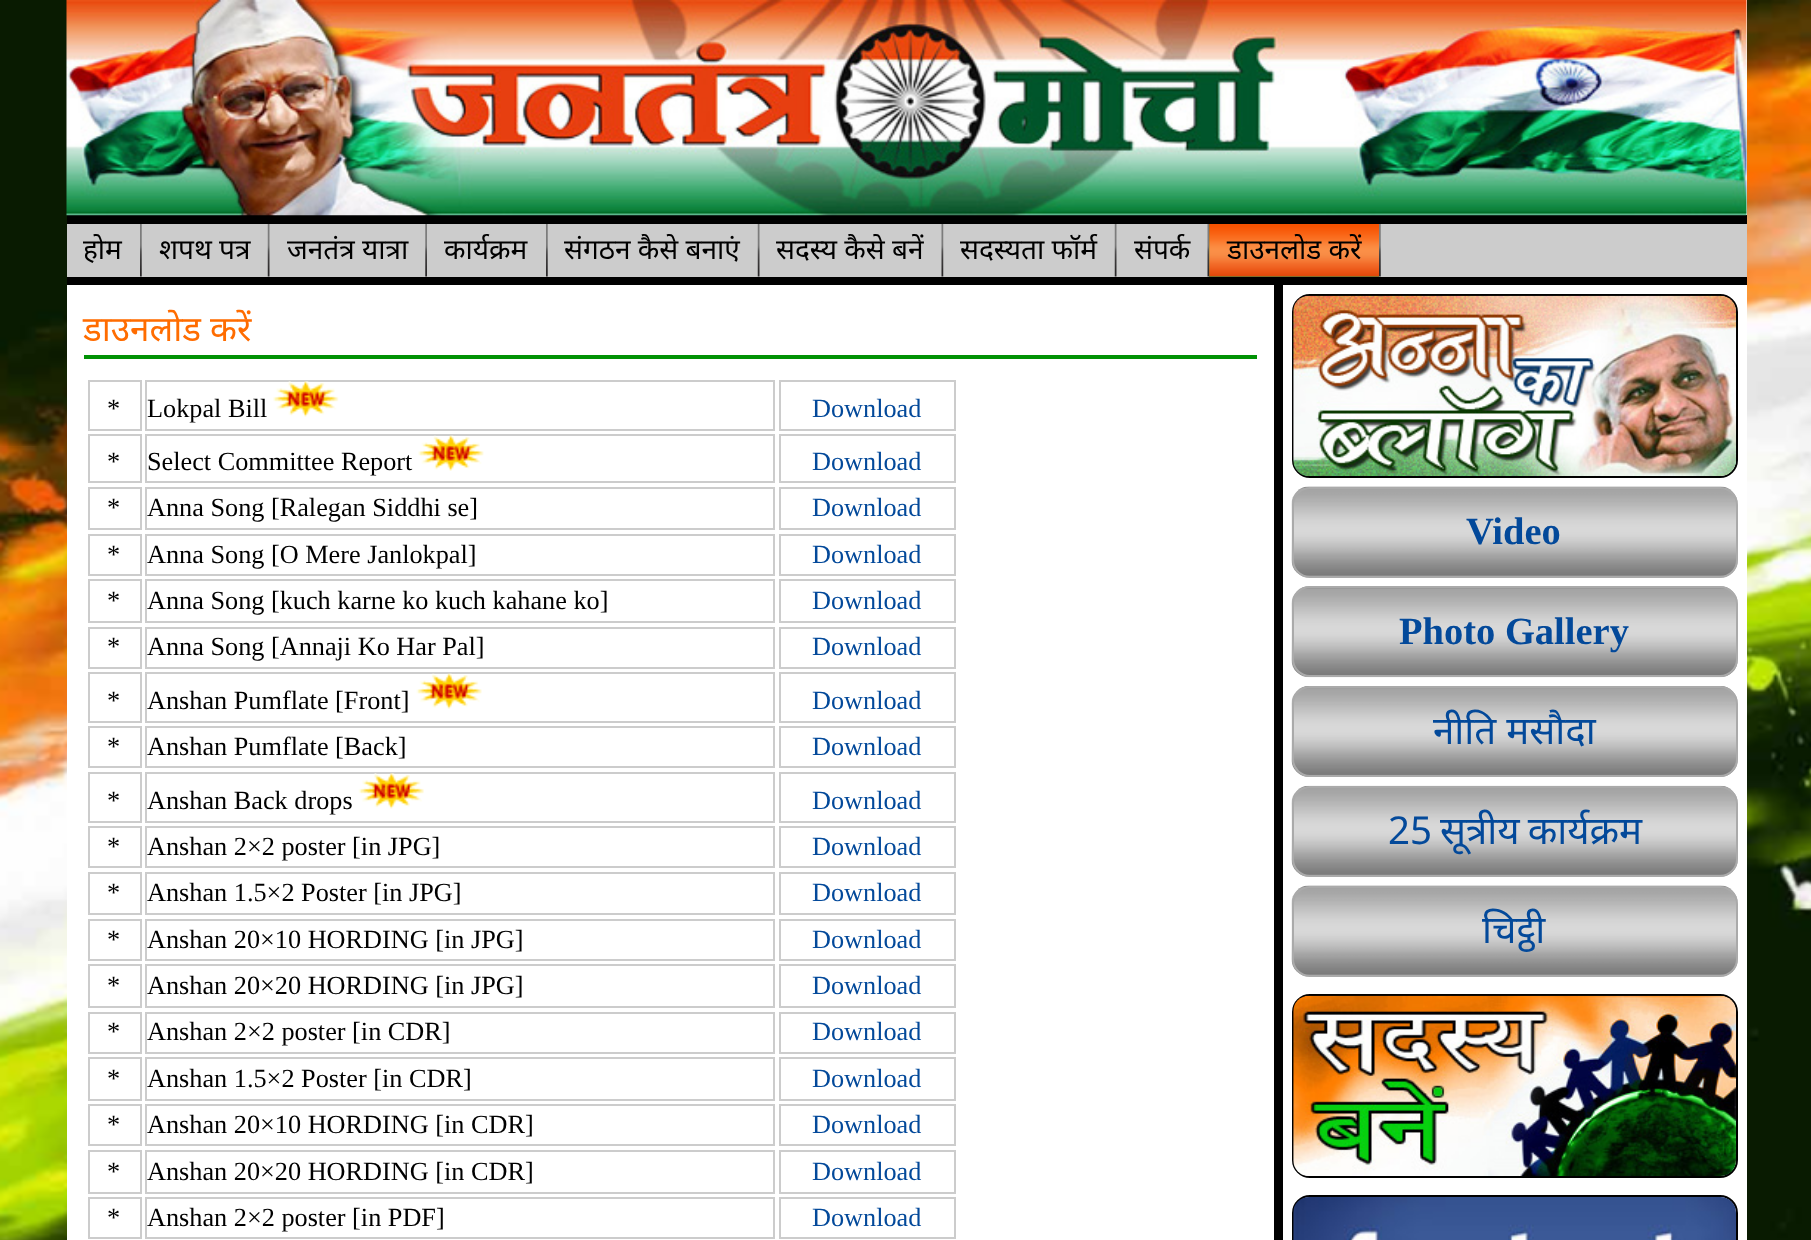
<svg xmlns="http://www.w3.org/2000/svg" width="1811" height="1240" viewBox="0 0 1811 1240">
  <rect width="100%" height="100%" fill="rgb(255,255,255)"/>
  <image x="0" y="0" width="1811" height="1240" href="pic1.png"/>
  <rect x="67" y="0" width="1680" height="1240" fill="rgb(255,255,255)"/>
  <rect x="67" y="215" width="1680" height="9" fill="rgb(0,0,0)"/>
  <image x="66" y="0" width="1681" height="216" href="pic2.png"/>
  <rect x="67" y="224" width="1680" height="53" fill="rgb(204,204,204)"/>
  <rect x="67" y="277" width="1680" height="8" fill="rgb(0,0,0)"/>
  <image x="140" y="224" width="2" height="53" href="pic3.png"/>
  <text x="83" y="259" font-family="Noto Sans" font-size="28" fill="rgb(0,0,0)">होम</text>
  <image x="267" y="224" width="3" height="53" href="pic4.png"/>
  <text x="159" y="259" font-family="Noto Sans" font-size="28" fill="rgb(0,0,0)">शपथ पत्र</text>
  <image x="425" y="224" width="2" height="53" href="pic5.png"/>
  <text x="287" y="259" font-family="Noto Sans" font-size="28" fill="rgb(0,0,0)">जनतंत्र यात्रा</text>
  <image x="546" y="224" width="2" height="53" href="pic3.png"/>
  <text x="444" y="259" font-family="Noto Sans" font-size="28" fill="rgb(0,0,0)">कार्यक्रम</text>
  <image x="757" y="224" width="3" height="53" href="pic4.png"/>
  <text x="564" y="259" font-family="Noto Sans" font-size="28" fill="rgb(0,0,0)">संगठन कैसे बनाएं</text>
  <image x="941" y="224" width="3" height="53" href="pic6.png"/>
  <text x="776" y="259" font-family="Noto Sans" font-size="28" fill="rgb(0,0,0)">सदस्य कैसे बनें</text>
  <image x="1114" y="224" width="3" height="53" href="pic4.png"/>
  <text x="960" y="259" font-family="Noto Sans" font-size="28" fill="rgb(0,0,0)">सदस्यता फॉर्म</text>
  <image x="1207" y="224" width="2" height="53" href="pic7.png"/>
  <text x="1134" y="259" font-family="Noto Sans" font-size="28" fill="rgb(0,0,0)">संपर्क</text>
  <image x="1379" y="224" width="2" height="53" href="pic3.png"/>
  <rect x="1209" y="224" width="170" height="53" fill="rgb(34,148,78)"/>
  <image x="1209" y="224" width="170" height="53" href="pic8.png"/>
  <text x="1227" y="259" font-family="Noto Sans" font-size="28" fill="rgb(0,0,0)">डाउनलोड करें</text>
  <rect x="1274" y="285" width="9" height="955" fill="rgb(0,0,0)"/>
  <rect x="84" y="355" width="1173" height="4" fill="rgb(1,146,5)"/>
  <text x="83" y="341" font-family="Noto Sans" font-size="35" fill="rgb(255,108,0)">डाउनलोड करें</text>
  <rect x="89" y="381" width="52" height="49" fill="none" stroke="rgb(204,204,204)" stroke-width="2"/>
  <text x="107" y="417" font-family="Liberation Serif" font-size="26.25" fill="rgb(0,0,0)">*</text>
  <rect x="146" y="381" width="628" height="49" fill="none" stroke="rgb(204,204,204)" stroke-width="2"/>
  <text x="147" y="417" font-family="Liberation Serif" font-size="26.25" fill="rgb(0,0,0)">Lokpal Bill</text>
  <image x="273" y="381" width="66" height="36" href="pic9.png"/>
  <rect x="780" y="381" width="175" height="49" fill="none" stroke="rgb(204,204,204)" stroke-width="2"/>
  <text x="812" y="417" font-family="Liberation Serif" font-size="26.25" fill="rgb(3,73,154)">Download</text>
  <rect x="89" y="435" width="52" height="47" fill="none" stroke="rgb(204,204,204)" stroke-width="2"/>
  <text x="107" y="470" font-family="Liberation Serif" font-size="26.25" fill="rgb(0,0,0)">*</text>
  <rect x="146" y="435" width="628" height="47" fill="none" stroke="rgb(204,204,204)" stroke-width="2"/>
  <text x="147" y="470" font-family="Liberation Serif" font-size="26.25" fill="rgb(0,0,0)">Select Committee Report</text>
  <image x="418" y="435" width="66" height="36" href="pic10.png"/>
  <rect x="780" y="435" width="175" height="47" fill="none" stroke="rgb(204,204,204)" stroke-width="2"/>
  <text x="812" y="470" font-family="Liberation Serif" font-size="26.25" fill="rgb(3,73,154)">Download</text>
  <rect x="89" y="488" width="52" height="41" fill="none" stroke="rgb(204,204,204)" stroke-width="2"/>
  <text x="107" y="516" font-family="Liberation Serif" font-size="26.25" fill="rgb(0,0,0)">*</text>
  <rect x="146" y="488" width="628" height="41" fill="none" stroke="rgb(204,204,204)" stroke-width="2"/>
  <text x="147" y="516" font-family="Liberation Serif" font-size="26.25" fill="rgb(0,0,0)">Anna Song [Ralegan Siddhi se]</text>
  <rect x="780" y="488" width="175" height="41" fill="none" stroke="rgb(204,204,204)" stroke-width="2"/>
  <text x="812" y="516" font-family="Liberation Serif" font-size="26.25" fill="rgb(3,73,154)">Download</text>
  <rect x="89" y="535" width="52" height="40" fill="none" stroke="rgb(204,204,204)" stroke-width="2"/>
  <text x="107" y="563" font-family="Liberation Serif" font-size="26.25" fill="rgb(0,0,0)">*</text>
  <rect x="146" y="535" width="628" height="40" fill="none" stroke="rgb(204,204,204)" stroke-width="2"/>
  <text x="147" y="563" font-family="Liberation Serif" font-size="26.25" fill="rgb(0,0,0)">Anna Song [O Mere Janlokpal]</text>
  <rect x="780" y="535" width="175" height="40" fill="none" stroke="rgb(204,204,204)" stroke-width="2"/>
  <text x="812" y="563" font-family="Liberation Serif" font-size="26.25" fill="rgb(3,73,154)">Download</text>
  <rect x="89" y="580" width="52" height="42" fill="none" stroke="rgb(204,204,204)" stroke-width="2"/>
  <text x="107" y="609" font-family="Liberation Serif" font-size="26.25" fill="rgb(0,0,0)">*</text>
  <rect x="146" y="580" width="628" height="42" fill="none" stroke="rgb(204,204,204)" stroke-width="2"/>
  <text x="147" y="609" font-family="Liberation Serif" font-size="26.25" fill="rgb(0,0,0)">Anna Song [kuch karne ko kuch kahane ko]</text>
  <rect x="780" y="580" width="175" height="42" fill="none" stroke="rgb(204,204,204)" stroke-width="2"/>
  <text x="812" y="609" font-family="Liberation Serif" font-size="26.25" fill="rgb(3,73,154)">Download</text>
  <rect x="89" y="628" width="52" height="40" fill="none" stroke="rgb(204,204,204)" stroke-width="2"/>
  <text x="107" y="655" font-family="Liberation Serif" font-size="26.25" fill="rgb(0,0,0)">*</text>
  <rect x="146" y="628" width="628" height="40" fill="none" stroke="rgb(204,204,204)" stroke-width="2"/>
  <text x="147" y="655" font-family="Liberation Serif" font-size="26.25" fill="rgb(0,0,0)">Anna Song [Annaji Ko Har Pal]</text>
  <rect x="780" y="628" width="175" height="40" fill="none" stroke="rgb(204,204,204)" stroke-width="2"/>
  <text x="812" y="655" font-family="Liberation Serif" font-size="26.25" fill="rgb(3,73,154)">Download</text>
  <rect x="89" y="673" width="52" height="49" fill="none" stroke="rgb(204,204,204)" stroke-width="2"/>
  <text x="107" y="709" font-family="Liberation Serif" font-size="26.25" fill="rgb(0,0,0)">*</text>
  <rect x="146" y="673" width="628" height="49" fill="none" stroke="rgb(204,204,204)" stroke-width="2"/>
  <text x="147" y="709" font-family="Liberation Serif" font-size="26.25" fill="rgb(0,0,0)">Anshan Pumflate [Front]</text>
  <image x="416" y="673" width="66" height="36" href="pic11.png"/>
  <rect x="780" y="673" width="175" height="49" fill="none" stroke="rgb(204,204,204)" stroke-width="2"/>
  <text x="812" y="709" font-family="Liberation Serif" font-size="26.25" fill="rgb(3,73,154)">Download</text>
  <rect x="89" y="727" width="52" height="40" fill="none" stroke="rgb(204,204,204)" stroke-width="2"/>
  <text x="107" y="755" font-family="Liberation Serif" font-size="26.25" fill="rgb(0,0,0)">*</text>
  <rect x="146" y="727" width="628" height="40" fill="none" stroke="rgb(204,204,204)" stroke-width="2"/>
  <text x="147" y="755" font-family="Liberation Serif" font-size="26.25" fill="rgb(0,0,0)">Anshan Pumflate [Back]</text>
  <rect x="780" y="727" width="175" height="40" fill="none" stroke="rgb(204,204,204)" stroke-width="2"/>
  <text x="812" y="755" font-family="Liberation Serif" font-size="26.25" fill="rgb(3,73,154)">Download</text>
  <rect x="89" y="773" width="52" height="49" fill="none" stroke="rgb(204,204,204)" stroke-width="2"/>
  <text x="107" y="809" font-family="Liberation Serif" font-size="26.25" fill="rgb(0,0,0)">*</text>
  <rect x="146" y="773" width="628" height="49" fill="none" stroke="rgb(204,204,204)" stroke-width="2"/>
  <text x="147" y="809" font-family="Liberation Serif" font-size="26.25" fill="rgb(0,0,0)">Anshan Back drops</text>
  <image x="358" y="773" width="66" height="36" href="pic12.png"/>
  <rect x="780" y="773" width="175" height="49" fill="none" stroke="rgb(204,204,204)" stroke-width="2"/>
  <text x="812" y="809" font-family="Liberation Serif" font-size="26.25" fill="rgb(3,73,154)">Download</text>
  <rect x="89" y="827" width="52" height="40" fill="none" stroke="rgb(204,204,204)" stroke-width="2"/>
  <text x="107" y="855" font-family="Liberation Serif" font-size="26.25" fill="rgb(0,0,0)">*</text>
  <rect x="146" y="827" width="628" height="40" fill="none" stroke="rgb(204,204,204)" stroke-width="2"/>
  <text x="147" y="855" font-family="Liberation Serif" font-size="26.25" fill="rgb(0,0,0)">Anshan 2×2 poster [in JPG]</text>
  <rect x="780" y="827" width="175" height="40" fill="none" stroke="rgb(204,204,204)" stroke-width="2"/>
  <text x="812" y="855" font-family="Liberation Serif" font-size="26.25" fill="rgb(3,73,154)">Download</text>
  <rect x="89" y="873" width="52" height="41" fill="none" stroke="rgb(204,204,204)" stroke-width="2"/>
  <text x="107" y="901" font-family="Liberation Serif" font-size="26.25" fill="rgb(0,0,0)">*</text>
  <rect x="146" y="873" width="628" height="41" fill="none" stroke="rgb(204,204,204)" stroke-width="2"/>
  <text x="147" y="901" font-family="Liberation Serif" font-size="26.25" fill="rgb(0,0,0)">Anshan 1.5×2 Poster [in JPG]</text>
  <rect x="780" y="873" width="175" height="41" fill="none" stroke="rgb(204,204,204)" stroke-width="2"/>
  <text x="812" y="901" font-family="Liberation Serif" font-size="26.25" fill="rgb(3,73,154)">Download</text>
  <rect x="89" y="920" width="52" height="40" fill="none" stroke="rgb(204,204,204)" stroke-width="2"/>
  <text x="107" y="948" font-family="Liberation Serif" font-size="26.25" fill="rgb(0,0,0)">*</text>
  <rect x="146" y="920" width="628" height="40" fill="none" stroke="rgb(204,204,204)" stroke-width="2"/>
  <text x="147" y="948" font-family="Liberation Serif" font-size="26.25" fill="rgb(0,0,0)">Anshan 20×10 HORDING [in JPG]</text>
  <rect x="780" y="920" width="175" height="40" fill="none" stroke="rgb(204,204,204)" stroke-width="2"/>
  <text x="812" y="948" font-family="Liberation Serif" font-size="26.25" fill="rgb(3,73,154)">Download</text>
  <rect x="89" y="965" width="52" height="42" fill="none" stroke="rgb(204,204,204)" stroke-width="2"/>
  <text x="107" y="994" font-family="Liberation Serif" font-size="26.25" fill="rgb(0,0,0)">*</text>
  <rect x="146" y="965" width="628" height="42" fill="none" stroke="rgb(204,204,204)" stroke-width="2"/>
  <text x="147" y="994" font-family="Liberation Serif" font-size="26.25" fill="rgb(0,0,0)">Anshan 20×20 HORDING [in JPG]</text>
  <rect x="780" y="965" width="175" height="42" fill="none" stroke="rgb(204,204,204)" stroke-width="2"/>
  <text x="812" y="994" font-family="Liberation Serif" font-size="26.25" fill="rgb(3,73,154)">Download</text>
  <rect x="89" y="1013" width="52" height="40" fill="none" stroke="rgb(204,204,204)" stroke-width="2"/>
  <text x="107" y="1040" font-family="Liberation Serif" font-size="26.25" fill="rgb(0,0,0)">*</text>
  <rect x="146" y="1013" width="628" height="40" fill="none" stroke="rgb(204,204,204)" stroke-width="2"/>
  <text x="147" y="1040" font-family="Liberation Serif" font-size="26.25" fill="rgb(0,0,0)">Anshan 2×2 poster [in CDR]</text>
  <rect x="780" y="1013" width="175" height="40" fill="none" stroke="rgb(204,204,204)" stroke-width="2"/>
  <text x="812" y="1040" font-family="Liberation Serif" font-size="26.25" fill="rgb(3,73,154)">Download</text>
  <rect x="89" y="1058" width="52" height="42" fill="none" stroke="rgb(204,204,204)" stroke-width="2"/>
  <text x="107" y="1087" font-family="Liberation Serif" font-size="26.25" fill="rgb(0,0,0)">*</text>
  <rect x="146" y="1058" width="628" height="42" fill="none" stroke="rgb(204,204,204)" stroke-width="2"/>
  <text x="147" y="1087" font-family="Liberation Serif" font-size="26.25" fill="rgb(0,0,0)">Anshan 1.5×2 Poster [in CDR]</text>
  <rect x="780" y="1058" width="175" height="42" fill="none" stroke="rgb(204,204,204)" stroke-width="2"/>
  <text x="812" y="1087" font-family="Liberation Serif" font-size="26.25" fill="rgb(3,73,154)">Download</text>
  <rect x="89" y="1105" width="52" height="40" fill="none" stroke="rgb(204,204,204)" stroke-width="2"/>
  <text x="107" y="1133" font-family="Liberation Serif" font-size="26.25" fill="rgb(0,0,0)">*</text>
  <rect x="146" y="1105" width="628" height="40" fill="none" stroke="rgb(204,204,204)" stroke-width="2"/>
  <text x="147" y="1133" font-family="Liberation Serif" font-size="26.25" fill="rgb(0,0,0)">Anshan 20×10 HORDING [in CDR]</text>
  <rect x="780" y="1105" width="175" height="40" fill="none" stroke="rgb(204,204,204)" stroke-width="2"/>
  <text x="812" y="1133" font-family="Liberation Serif" font-size="26.25" fill="rgb(3,73,154)">Download</text>
  <rect x="89" y="1151" width="52" height="42" fill="none" stroke="rgb(204,204,204)" stroke-width="2"/>
  <text x="107" y="1180" font-family="Liberation Serif" font-size="26.25" fill="rgb(0,0,0)">*</text>
  <rect x="146" y="1151" width="628" height="42" fill="none" stroke="rgb(204,204,204)" stroke-width="2"/>
  <text x="147" y="1180" font-family="Liberation Serif" font-size="26.25" fill="rgb(0,0,0)">Anshan 20×20 HORDING [in CDR]</text>
  <rect x="780" y="1151" width="175" height="42" fill="none" stroke="rgb(204,204,204)" stroke-width="2"/>
  <text x="812" y="1180" font-family="Liberation Serif" font-size="26.25" fill="rgb(3,73,154)">Download</text>
  <rect x="89" y="1198" width="52" height="40" fill="none" stroke="rgb(204,204,204)" stroke-width="2"/>
  <text x="107" y="1226" font-family="Liberation Serif" font-size="26.25" fill="rgb(0,0,0)">*</text>
  <rect x="146" y="1198" width="628" height="40" fill="none" stroke="rgb(204,204,204)" stroke-width="2"/>
  <text x="147" y="1226" font-family="Liberation Serif" font-size="26.25" fill="rgb(0,0,0)">Anshan 2×2 poster [in PDF]</text>
  <rect x="780" y="1198" width="175" height="40" fill="none" stroke="rgb(204,204,204)" stroke-width="2"/>
  <text x="812" y="1226" font-family="Liberation Serif" font-size="26.25" fill="rgb(3,73,154)">Download</text>
  <rect x="1293" y="295" width="444" height="182" rx="17" fill="none" stroke="rgb(0,0,0)" stroke-width="2"/>
  <image x="1293" y="295" width="443" height="181" href="pic13.png"/>
  <image x="1291" y="486" width="447" height="92" href="pic14.png"/>
  <rect x="1293" y="488" width="444" height="89" rx="17" fill="none" stroke="rgb(170,170,170)" stroke-width="2"/>
  <text x="1466" y="544" font-family="Liberation Serif" font-size="38.5" font-weight="bold" fill="rgb(3,73,154)">Video</text>
  <image x="1291" y="586" width="447" height="92" href="pic15.png"/>
  <rect x="1293" y="587" width="444" height="89" rx="17" fill="none" stroke="rgb(170,170,170)" stroke-width="2"/>
  <text x="1399" y="644" font-family="Liberation Serif" font-size="38.5" font-weight="bold" fill="rgb(3,73,154)">Photo Gallery</text>
  <image x="1291" y="686" width="447" height="91" href="pic16.png"/>
  <rect x="1293" y="687" width="444" height="89" rx="17" fill="none" stroke="rgb(170,170,170)" stroke-width="2"/>
  <text x="1433" y="744" font-family="Noto Sans" font-size="38.5" fill="rgb(3,73,154)">नीति मसौदा</text>
  <image x="1291" y="785" width="447" height="92" href="pic17.png"/>
  <rect x="1293" y="787" width="444" height="89" rx="17" fill="none" stroke="rgb(170,170,170)" stroke-width="2"/>
  <text x="1388" y="844" word-spacing="-2" font-family="Noto Sans" font-size="38.5" fill="rgb(3,73,154)">25 सूत्रीय कार्यक्रम</text>
  <image x="1291" y="885" width="447" height="92" href="pic18.png"/>
  <rect x="1293" y="887" width="444" height="89" rx="17" fill="none" stroke="rgb(170,170,170)" stroke-width="2"/>
  <text x="1482" y="943" font-family="Noto Sans" font-size="38.5" fill="rgb(3,73,154)">चिट्ठी</text>
  <rect x="1293" y="995" width="444" height="182" rx="17" fill="none" stroke="rgb(0,0,0)" stroke-width="2"/>
  <image x="1293" y="995" width="443" height="181" href="pic19.png"/>
  <rect x="1293" y="1196" width="444" height="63" rx="17" fill="none" stroke="rgb(0,0,0)" stroke-width="2"/>
  <image x="1293" y="1197" width="443" height="43" href="pic20.png"/>
</svg>
